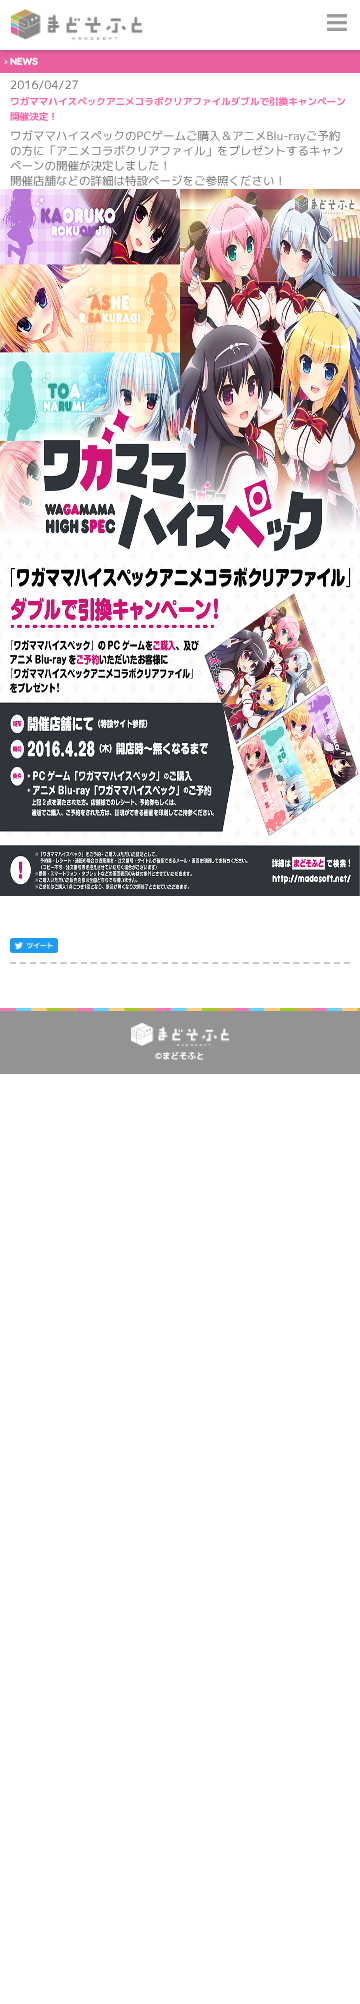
<svg xmlns="http://www.w3.org/2000/svg" width="360" height="2004" viewBox="0 0 360 2004">
  <defs>
    <clipPath id="clip1"><rect x="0" y="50" width="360" height="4"/></clipPath>
  </defs>
  <rect width="100%" height="100%" fill="rgb(255,255,255)"/>
  <rect x="0" y="50" width="360" height="23" fill="rgb(234,96,158)"/>
  <g clip-path="url(#clip1)">
    <rect x="1" y="1" width="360" height="50" fill="rgba(0,0,0,0.25)" filter="blur(2.5px)"/>
  </g>
  <image x="10" y="9" width="133" height="32" href="pic1.png"/>
  <image x="327" y="14" width="20" height="17" href="pic2.png"/>
  <path d="M5.5 60L7.5 62L6.5 62.5L4.5 60.5Z" fill="rgb(255,255,255)"/>
  <path d="M6.5 61L7.5 62L5.5 64L4.5 63.5Z" fill="rgb(255,255,255)"/>
  <text x="10" y="65" font-family="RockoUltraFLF" font-size="9.6" font-weight="500" fill="rgb(255,255,255)">NEWS</text>
  <text x="10" y="89" font-family="'M PLUS 1p'" font-size="11.5" fill="rgb(110,110,110)">2016/04/27</text>
  <g font-family="'M PLUS 1p'" font-size="9.6" font-weight="bold" fill="rgb(255,98,167)">
    <text>
      <tspan x="10" y="105">ワガママハイスペックアニメコラボクリアファイルダブルで引換キャンペーン</tspan>
      <tspan x="10" y="120">開催決定！</tspan>
    </text>
  </g>
  <g font-family="'M PLUS 1p'" font-size="11.5" fill="rgb(120,120,120)">
    <text>
      <tspan x="10" y="140">ワガママハイスペックのPCゲームご購入＆アニメBlu-rayご予約</tspan>
      <tspan x="10" y="155">の方に「アニメコラボクリアファイル」をプレゼントするキャン</tspan>
      <tspan x="10" y="170">ペーンの開催が決定しました！</tspan>
      <tspan x="10" y="185">開催店舗などの詳細は特設ページをご参照ください！</tspan>
    </text>
  </g>
  <image x="0" y="189" width="360" height="707" href="pic3.png"/>
  <path d="M10 963H350" fill="none" stroke="rgb(200,200,200)" stroke-width="2" stroke-dasharray="6 4.12"/>
  <image x="10" y="938" width="48" height="15" href="pic4.png"/>
  <rect x="0" y="1011" width="360" height="63" fill="rgb(147,147,147)"/>
  <image x="0" y="1008" width="360" height="3" href="pic5.png"/>
  <image x="131" y="1023" width="98" height="23" href="pic6.png"/>
  <text x="155" y="1059" font-family="'M PLUS 1p'" font-size="8.5" font-weight="bold" fill="rgb(255,255,255)">©まどそふと</text>
</svg>
